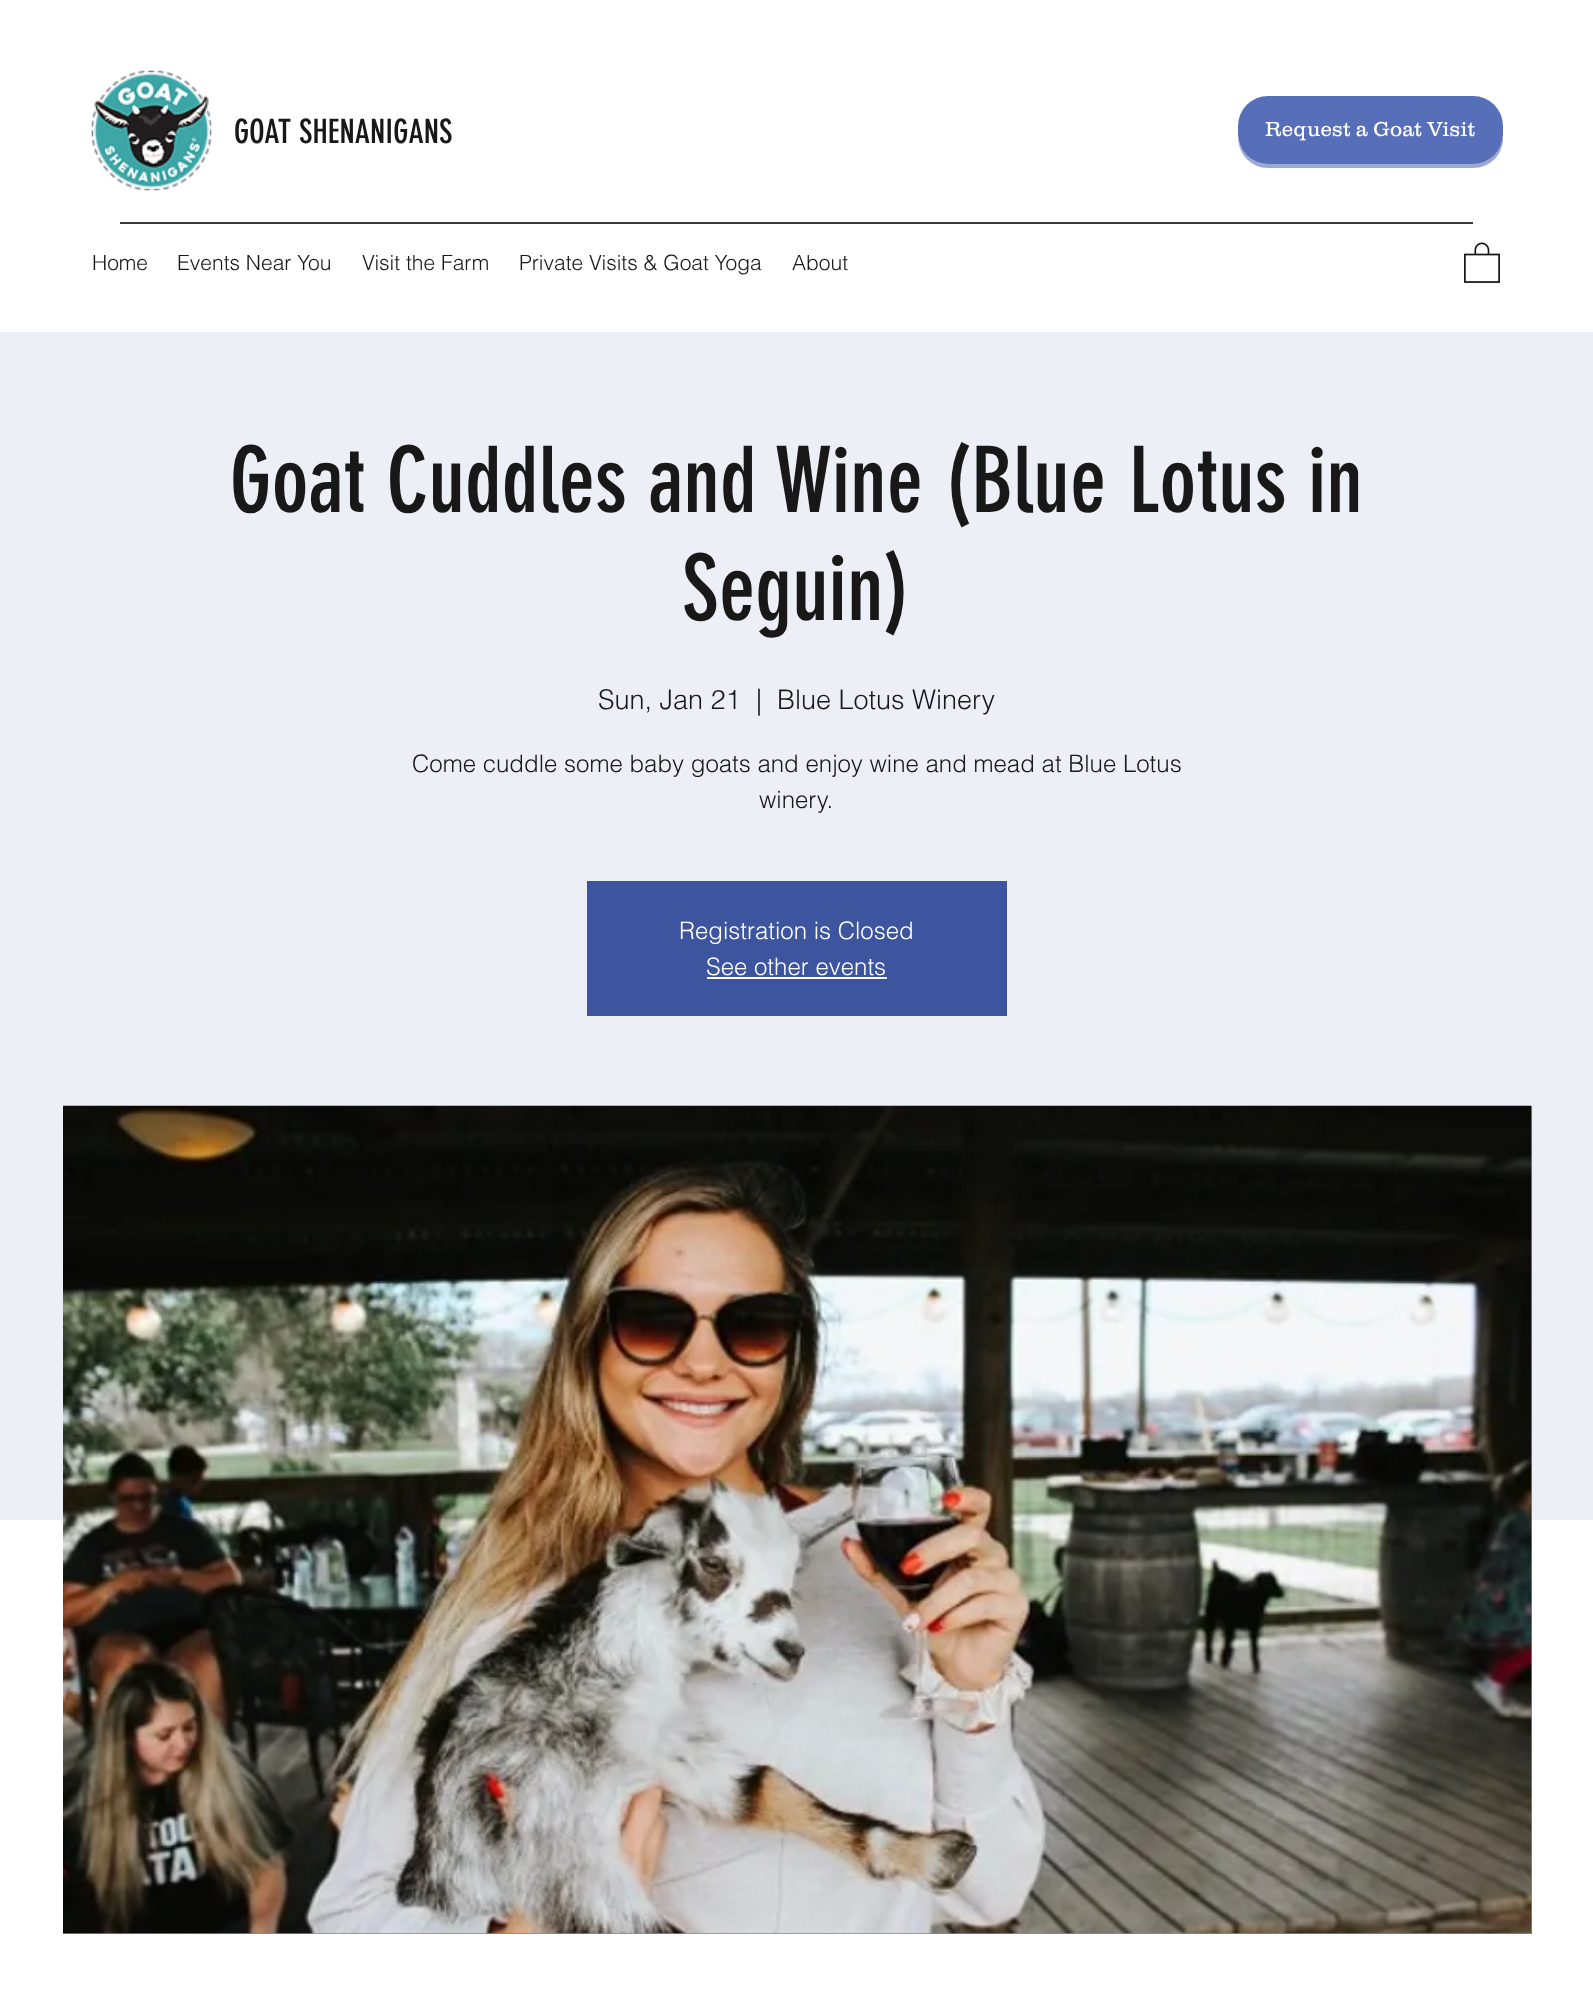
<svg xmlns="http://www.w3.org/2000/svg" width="1593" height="2005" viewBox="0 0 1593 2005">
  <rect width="100%" height="100%" fill="rgb(255,255,255)"/>
  <image x="91" y="70" width="121" height="121" href="pic1.png"/>
  <text x="234" y="143" font-family="'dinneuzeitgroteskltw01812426'" font-size="33" fill="rgb(24,24,24)">GOAT SHENANIGANS</text>
  <path d="M1238 139C1239 155 1252 168 1268 168H1473C1490 168 1503 155 1503 138V134C1503 150 1490 164 1473 164H1268C1253 164 1241 153 1238 139Z" fill="rgb(154,169,212)"/>
  <rect x="1238" y="96" width="265" height="68" rx="30" fill="rgb(86,111,184)"/>
  <text x="1265" y="136" font-family="'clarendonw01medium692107'" font-size="21" font-weight="300" fill="rgb(255,255,255)">Request a Goat Visit</text>
  <rect x="120" y="222" width="1353" height="2" fill="rgb(59,59,59)"/>
  <g font-family="helvetica" font-size="21" font-weight="300" fill="rgb(24,24,24)">
    <text x="92" y="270">Home</text>
    <text x="177" y="270">Events Near You</text>
    <text x="362" y="270">Visit the Farm</text>
    <text x="519" y="270">Private Visits &amp; Goat Yoga</text>
    <text x="792" y="270">About</text>
  </g>
  <image x="1464" y="242" width="36" height="41" href="pic2.png"/>
  <rect x="0" y="332" width="1593" height="1188" fill="rgb(236,239,246)"/>
  <g font-family="'dinneuzeitgroteskltw01812426'" font-size="90" fill="rgb(24,24,24)">
    <text x="230" y="512">Goat Cuddles and Wine (Blue Lotus in</text>
    <text x="682" y="620">Seguin)</text>
  </g>
  <g font-family="helvetica" font-size="27" font-weight="300" fill="rgb(24,24,24)">
    <text x="598" y="709">Sun, Jan 21</text>
    <text x="756" y="709">|</text>
    <text x="777" y="709">Blue Lotus Winery</text>
  </g>
  <g font-family="helvetica" font-size="24" font-weight="300" fill="rgb(24,24,24)">
    <text x="412" y="772">Come cuddle some baby goats and enjoy wine and mead at Blue Lotus</text>
    <text x="759" y="808">winery.</text>
  </g>
  <rect x="587" y="881" width="420" height="135" fill="rgb(61,85,159)"/>
  <g font-family="helvetica" font-size="24" font-weight="300" fill="rgb(255,255,255)">
    <text x="679" y="939">Registration is Closed</text>
    <text x="706" y="975">See other events</text>
  </g>
  <rect x="707" y="977" width="180" height="2" fill="rgb(255,255,255)"/>
  <rect x="63" y="1106" width="1469" height="828" fill="rgb(115,136,201)"/>
  <image x="63" y="1105" width="1469" height="829" href="pic3.png"/>
</svg>
